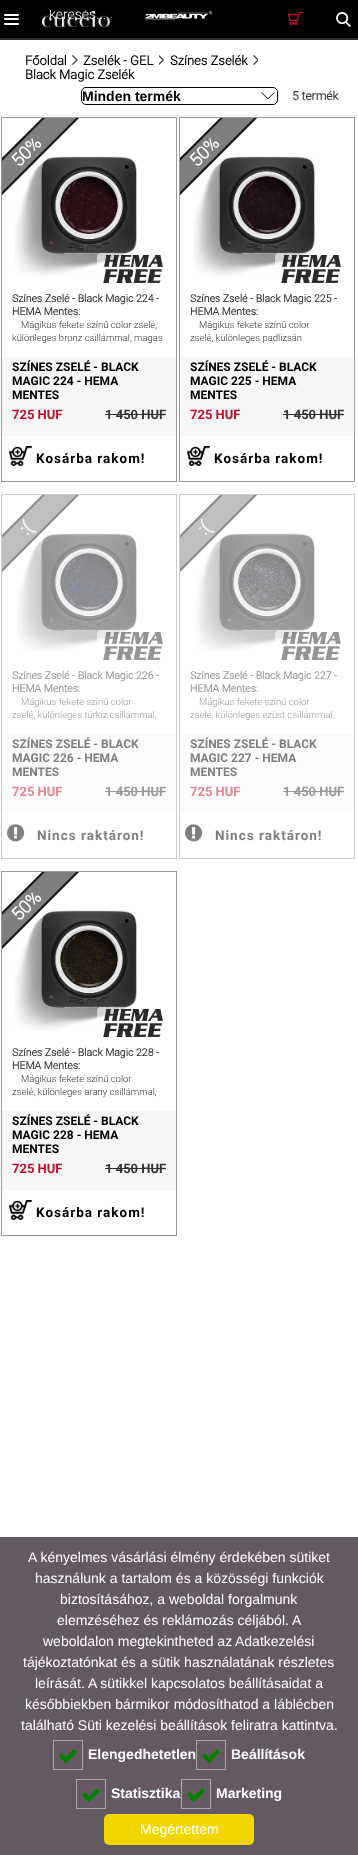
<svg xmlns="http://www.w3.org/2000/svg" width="358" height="1855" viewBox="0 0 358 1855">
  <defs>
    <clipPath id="clip1"><rect x="2" y="118" width="174" height="174"/></clipPath>
    <clipPath id="clip2"><rect x="180" y="118" width="174" height="174"/></clipPath>
    <clipPath id="clip3"><rect x="2" y="495" width="174" height="174"/></clipPath>
    <clipPath id="clip4"><rect x="180" y="495" width="174" height="174"/></clipPath>
    <clipPath id="clip5"><rect x="2" y="872" width="174" height="174"/></clipPath>
  </defs>
  <rect width="100%" height="100%" fill="rgb(255,255,255)"/>
  <rect x="0" y="0" width="358" height="38" fill="rgb(0,0,0)"/>
  <rect x="4" y="14" width="15" height="2" rx="1" fill="rgb(255,255,255)"/>
  <rect x="4" y="18" width="15" height="2" rx="1" fill="rgb(255,255,255)"/>
  <rect x="4" y="23" width="15" height="2" rx="1" fill="rgb(255,255,255)"/>
  <image x="42" y="10" width="70" height="17" href="pic1.png"/>
  <image x="145" y="11" width="68" height="9" href="pic2.png"/>
  <image x="288" y="12" width="15" height="13" href="pic3.png"/>
  <image x="336" y="12" width="15" height="15" href="pic4.png"/>
  <rect x="0" y="38" width="358" height="2" fill="rgb(48,48,48)"/>
  <text x="25" y="65" font-family="Roboto" font-size="13" font-weight="bold" fill="rgb(0,0,0)">Főoldal</text>
  <image x="72" y="55" width="6" height="10" href="pic5.png"/>
  <text x="83" y="65" font-family="Roboto" font-size="13" font-weight="bold" fill="rgb(0,0,0)">Zselék - GEL</text>
  <image x="159" y="55" width="5" height="10" href="pic6.png"/>
  <text x="170" y="65" font-family="Roboto" font-size="13" font-weight="bold" fill="rgb(0,0,0)">Színes Zselék</text>
  <image x="253" y="55" width="5" height="10" href="pic7.png"/>
  <text x="25" y="79" font-family="Roboto" font-size="13" font-weight="bold" fill="rgb(0,0,0)">Black Magic Zselék</text>
  <image x="261" y="92" width="14" height="8" href="pic8.png"/>
  <rect x="81.5" y="87.5" width="196" height="17" rx="4.5" fill="none" stroke="rgb(0,0,0)"/>
  <text x="82" y="101" font-family="Liberation Sans" font-size="14" font-weight="bold" fill="rgb(0,0,0)">Minden termék</text>
  <text x="292" y="100" font-family="Roboto" font-size="12" font-weight="bold" fill="rgb(51,51,51)">5 termék</text>
  <rect x="0" y="115" width="358" height="1" fill="rgb(238,238,238)"/>
  <rect x="1.5" y="117.5" width="175" height="364" fill="none" stroke="rgb(153,153,153)"/>
  <image x="15" y="156" width="122" height="121" href="pic9.png"/>
  <g clip-path="url(#clip1)">
    <path d="M-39 199L74 86L93 104L-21 218Z" fill="rgb(127,127,127)"/>
    <path d="M-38 199.5L74 87.5L91 104.5L-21 216.5Z" fill="none" stroke="rgb(25,25,25)" stroke-width="2"/>
  </g>
  <text x="19" y="168" transform="rotate(-45 19 168)" font-family="Roboto" font-size="18" font-weight="bold" fill="rgb(255,255,255)">50%</text>
  <rect x="97" y="253" width="74" height="34" rx="4" fill="rgba(255,255,255,0.6)"/>
  <image x="103" y="255" width="61" height="28" href="pic10.png"/>
  <g font-family="Roboto" font-size="10.5" font-weight="bold" fill="rgb(51,51,51)">
    <text>
      <tspan x="12" y="302">Színes Zselé - Black Magic 224 -</tspan>
      <tspan x="12" y="315">HEMA Mentes:</tspan>
    </text>
  </g>
  <g font-family="Roboto" font-size="9.5" font-weight="300" fill="rgb(51,51,51)">
    <text x="21" y="328">Mágikus fekete színű color zselé,</text>
    <text x="12" y="341">különleges bronz csillámmal, magas</text>
  </g>
  <rect x="2" y="357" width="174" height="79" fill="rgb(247,247,248)"/>
  <g font-family="'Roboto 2'" font-size="12" font-weight="bold" fill="rgb(0,0,0)">
    <text>
      <tspan x="12" y="371">SZÍNES ZSELÉ - BLACK</tspan>
      <tspan x="12" y="385">MAGIC 224 - HEMA</tspan>
      <tspan x="12" y="399">MENTES</tspan>
    </text>
  </g>
  <text x="12" y="419" font-family="'Roboto 2'" font-size="13" font-weight="bold" fill="rgb(192,15,44)">725 HUF</text>
  <text x="105" y="419" font-family="'Roboto 2'" font-size="13" font-weight="bold" fill="rgb(51,51,51)">1 450 HUF</text>
  <rect x="105" y="414" width="61" height="1" fill="rgb(51,51,51)"/>
  <image x="9" y="446" width="23" height="20" href="pic11.png"/>
  <text x="36" y="463" font-family="'Roboto 2'" font-size="13.5" font-weight="bold" letter-spacing="1" fill="rgb(0,0,0)">Kosárba rakom!</text>
  <rect x="179.5" y="117.5" width="175" height="364" fill="none" stroke="rgb(153,153,153)"/>
  <image x="193" y="156" width="122" height="121" href="pic12.png"/>
  <g clip-path="url(#clip2)">
    <path d="M139 199L252 86L271 104L157 218Z" fill="rgb(127,127,127)"/>
    <path d="M140 199.5L252 87.5L269 104.5L157 216.5Z" fill="none" stroke="rgb(25,25,25)" stroke-width="2"/>
  </g>
  <text x="197" y="168" transform="rotate(-45 197 168)" font-family="Roboto" font-size="18" font-weight="bold" fill="rgb(255,255,255)">50%</text>
  <rect x="275" y="253" width="74" height="34" rx="4" fill="rgba(255,255,255,0.6)"/>
  <image x="281" y="255" width="61" height="28" href="pic13.png"/>
  <g font-family="Roboto" font-size="10.5" font-weight="bold" fill="rgb(51,51,51)">
    <text>
      <tspan x="190" y="302">Színes Zselé - Black Magic 225 -</tspan>
      <tspan x="190" y="315">HEMA Mentes:</tspan>
    </text>
  </g>
  <g font-family="Roboto" font-size="9.5" font-weight="300" fill="rgb(51,51,51)">
    <text x="199" y="328">Mágikus fekete színű color</text>
    <text x="190" y="341">zselé, különleges padlizsán</text>
  </g>
  <rect x="180" y="357" width="174" height="79" fill="rgb(247,247,248)"/>
  <g font-family="'Roboto 2'" font-size="12" font-weight="bold" fill="rgb(0,0,0)">
    <text>
      <tspan x="190" y="371">SZÍNES ZSELÉ - BLACK</tspan>
      <tspan x="190" y="385">MAGIC 225 - HEMA</tspan>
      <tspan x="190" y="399">MENTES</tspan>
    </text>
  </g>
  <text x="190" y="419" font-family="'Roboto 2'" font-size="13" font-weight="bold" fill="rgb(192,15,44)">725 HUF</text>
  <text x="283" y="419" font-family="'Roboto 2'" font-size="13" font-weight="bold" fill="rgb(51,51,51)">1 450 HUF</text>
  <rect x="283" y="414" width="61" height="1" fill="rgb(51,51,51)"/>
  <image x="187" y="446" width="23" height="20" href="pic11.png"/>
  <text x="214" y="463" font-family="'Roboto 2'" font-size="13.5" font-weight="bold" letter-spacing="1" fill="rgb(0,0,0)">Kosárba rakom!</text>
  <rect x="1.5" y="494.5" width="175" height="364" fill="none" stroke="rgb(204,204,204)"/>
  <image x="17" y="533" width="120" height="118" href="pic14.png"/>
  <g clip-path="url(#clip3)">
    <path d="M-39 576L74 463L93 481L-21 595Z" fill="rgb(191,191,191)"/>
    <path d="M-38 576.5L74 464.5L91 481.5L-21 593.5Z" fill="none" stroke="rgb(141,141,141)" stroke-width="2"/>
  </g>
  <text x="27" y="536" transform="rotate(-45 27 536)" font-family="Roboto" font-size="18" font-weight="bold" fill="rgb(255,255,255)">:(</text>
  <rect x="97" y="630" width="74" height="34" rx="4" fill="rgba(255,255,255,0.6)"/>
  <image x="103" y="632" width="60" height="28" href="pic15.png"/>
  <g font-family="Roboto" font-size="10.5" font-weight="bold" fill="rgb(153,153,153)">
    <text>
      <tspan x="12" y="679">Színes Zselé - Black Magic 226 -</tspan>
      <tspan x="12" y="692">HEMA Mentes:</tspan>
    </text>
  </g>
  <g font-family="Roboto" font-size="9.5" font-weight="300" fill="rgb(153,153,153)">
    <text x="21" y="705">Mágikus fekete színű color</text>
    <text x="12" y="718">zselé, különleges türkiz csillámmal,</text>
  </g>
  <rect x="2" y="734" width="174" height="79" fill="rgb(251,251,252)"/>
  <g font-family="'Roboto 2'" font-size="12" font-weight="bold" fill="rgb(128,128,128)">
    <text>
      <tspan x="12" y="748">SZÍNES ZSELÉ - BLACK</tspan>
      <tspan x="12" y="762">MAGIC 226 - HEMA</tspan>
      <tspan x="12" y="776">MENTES</tspan>
    </text>
  </g>
  <text x="12" y="796" font-family="'Roboto 2'" font-size="13" font-weight="bold" fill="rgb(224,135,150)">725 HUF</text>
  <text x="105" y="796" font-family="'Roboto 2'" font-size="13" font-weight="bold" fill="rgb(153,153,153)">1 450 HUF</text>
  <rect x="105" y="791" width="61" height="1" fill="rgb(153,153,153)"/>
  <image x="7" y="824" width="18" height="18" href="pic16.png"/>
  <text x="37" y="840" font-family="'Roboto 2'" font-size="13.5" font-weight="bold" letter-spacing="1" fill="rgb(128,128,128)">Nincs raktáron!</text>
  <rect x="179.5" y="494.5" width="175" height="364" fill="none" stroke="rgb(204,204,204)"/>
  <image x="195" y="533" width="120" height="118" href="pic17.png"/>
  <g clip-path="url(#clip4)">
    <path d="M139 576L252 463L271 481L157 595Z" fill="rgb(191,191,191)"/>
    <path d="M140 576.5L252 464.5L269 481.5L157 593.5Z" fill="none" stroke="rgb(141,141,141)" stroke-width="2"/>
  </g>
  <text x="205" y="536" transform="rotate(-45 205 536)" font-family="Roboto" font-size="18" font-weight="bold" fill="rgb(255,255,255)">:(</text>
  <rect x="275" y="630" width="74" height="34" rx="4" fill="rgba(255,255,255,0.6)"/>
  <image x="281" y="632" width="60" height="28" href="pic18.png"/>
  <g font-family="Roboto" font-size="10.5" font-weight="bold" fill="rgb(153,153,153)">
    <text>
      <tspan x="190" y="679">Színes Zselé - Black Magic 227 -</tspan>
      <tspan x="190" y="692">HEMA Mentes:</tspan>
    </text>
  </g>
  <g font-family="Roboto" font-size="9.5" font-weight="300" fill="rgb(153,153,153)">
    <text x="199" y="705">Mágikus fekete színű color</text>
    <text x="190" y="718">zselé, különleges ezüst csillámmal,</text>
  </g>
  <rect x="180" y="734" width="174" height="79" fill="rgb(251,251,252)"/>
  <g font-family="'Roboto 2'" font-size="12" font-weight="bold" fill="rgb(128,128,128)">
    <text>
      <tspan x="190" y="748">SZÍNES ZSELÉ - BLACK</tspan>
      <tspan x="190" y="762">MAGIC 227 - HEMA</tspan>
      <tspan x="190" y="776">MENTES</tspan>
    </text>
  </g>
  <text x="190" y="796" font-family="'Roboto 2'" font-size="13" font-weight="bold" fill="rgb(224,135,150)">725 HUF</text>
  <text x="283" y="796" font-family="'Roboto 2'" font-size="13" font-weight="bold" fill="rgb(153,153,153)">1 450 HUF</text>
  <rect x="283" y="791" width="61" height="1" fill="rgb(153,153,153)"/>
  <image x="185" y="824" width="18" height="18" href="pic16.png"/>
  <text x="215" y="840" font-family="'Roboto 2'" font-size="13.5" font-weight="bold" letter-spacing="1" fill="rgb(128,128,128)">Nincs raktáron!</text>
  <rect x="1.5" y="871.5" width="175" height="364" fill="none" stroke="rgb(153,153,153)"/>
  <image x="15" y="910" width="122" height="121" href="pic19.png"/>
  <g clip-path="url(#clip5)">
    <path d="M-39 953L74 840L93 858L-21 972Z" fill="rgb(127,127,127)"/>
    <path d="M-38 953.5L74 841.5L91 858.5L-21 970.5Z" fill="none" stroke="rgb(25,25,25)" stroke-width="2"/>
  </g>
  <text x="19" y="922" transform="rotate(-45 19 922)" font-family="Roboto" font-size="18" font-weight="bold" fill="rgb(255,255,255)">50%</text>
  <rect x="97" y="1007" width="74" height="34" rx="4" fill="rgba(255,255,255,0.6)"/>
  <image x="103" y="1009" width="61" height="28" href="pic20.png"/>
  <g font-family="Roboto" font-size="10.5" font-weight="bold" fill="rgb(51,51,51)">
    <text>
      <tspan x="12" y="1056">Színes Zselé - Black Magic 228 -</tspan>
      <tspan x="12" y="1069">HEMA Mentes:</tspan>
    </text>
  </g>
  <g font-family="Roboto" font-size="9.5" font-weight="300" fill="rgb(51,51,51)">
    <text x="21" y="1082">Mágikus fekete színű color</text>
    <text x="12" y="1095">zselé, különleges arany csillámmal,</text>
  </g>
  <rect x="2" y="1111" width="174" height="79" fill="rgb(247,247,248)"/>
  <g font-family="'Roboto 2'" font-size="12" font-weight="bold" fill="rgb(0,0,0)">
    <text>
      <tspan x="12" y="1125">SZÍNES ZSELÉ - BLACK</tspan>
      <tspan x="12" y="1139">MAGIC 228 - HEMA</tspan>
      <tspan x="12" y="1153">MENTES</tspan>
    </text>
  </g>
  <text x="12" y="1173" font-family="'Roboto 2'" font-size="13" font-weight="bold" fill="rgb(192,15,44)">725 HUF</text>
  <text x="105" y="1173" font-family="'Roboto 2'" font-size="13" font-weight="bold" fill="rgb(51,51,51)">1 450 HUF</text>
  <rect x="105" y="1168" width="61" height="1" fill="rgb(51,51,51)"/>
  <image x="9" y="1200" width="23" height="20" href="pic11.png"/>
  <text x="36" y="1217" font-family="'Roboto 2'" font-size="13.5" font-weight="bold" letter-spacing="1" fill="rgb(0,0,0)">Kosárba rakom!</text>
  <rect x="0" y="1537" width="358" height="318" fill="rgb(100,88,98)"/>
  <g font-family="Liberation Sans" font-size="14" fill="rgb(255,255,255)">
    <text x="28" y="1562">A kényelmes vásárlási élmény érdekében sütiket</text>
    <text x="35" y="1583">használunk a tartalom és a közösségi funkciók</text>
    <text x="60" y="1604">biztosításához, a weboldal forgalmunk</text>
    <text x="57" y="1625">elemzéséhez és reklámozás céljából. A</text>
    <text x="43" y="1646">weboldalon megtekintheted az</text>
    <text x="235" y="1646">Adatkezelési</text>
    <text x="23" y="1667">tájékoztatónkat és a sütik használatának részletes</text>
    <text x="35" y="1688">leírását. A sütikkel kapcsolatos beállításaidat a</text>
    <text x="25" y="1709">későbbiekben bármikor módosíthatod a láblécben</text>
    <text x="21" y="1730">található Süti kezelési beállítások feliratra kattintva.</text>
  </g>
  <rect x="53.5" y="1740.5" width="29" height="29" fill="none" stroke="rgb(170,170,170)"/>
  <image x="59" y="1749" width="18" height="14" href="pic21.png"/>
  <text x="88" y="1759" font-family="Liberation Sans" font-size="14" font-weight="bold" fill="rgb(255,255,255)">Elengedhetetlen</text>
  <rect x="196.5" y="1740.5" width="29" height="29" fill="none" stroke="rgb(170,170,170)"/>
  <image x="202" y="1749" width="18" height="14" href="pic21.png"/>
  <text x="231" y="1759" font-family="Liberation Sans" font-size="14" font-weight="bold" fill="rgb(255,255,255)">Beállítások</text>
  <rect x="76.5" y="1779.5" width="29" height="29" fill="none" stroke="rgb(170,170,170)"/>
  <image x="82" y="1788" width="18" height="14" href="pic21.png"/>
  <text x="111" y="1798" font-family="Liberation Sans" font-size="14" font-weight="bold" fill="rgb(255,255,255)">Statisztika</text>
  <rect x="181.5" y="1779.5" width="29" height="29" fill="none" stroke="rgb(170,170,170)"/>
  <image x="187" y="1788" width="18" height="14" href="pic21.png"/>
  <text x="216" y="1798" font-family="Liberation Sans" font-size="14" font-weight="bold" fill="rgb(255,255,255)">Marketing</text>
  <rect x="104" y="1814" width="150" height="31" rx="5" fill="rgb(241,214,0)"/>
  <text x="140" y="1834" font-family="Liberation Sans" font-size="14" fill="rgb(255,255,255)">Megértettem</text>
</svg>
